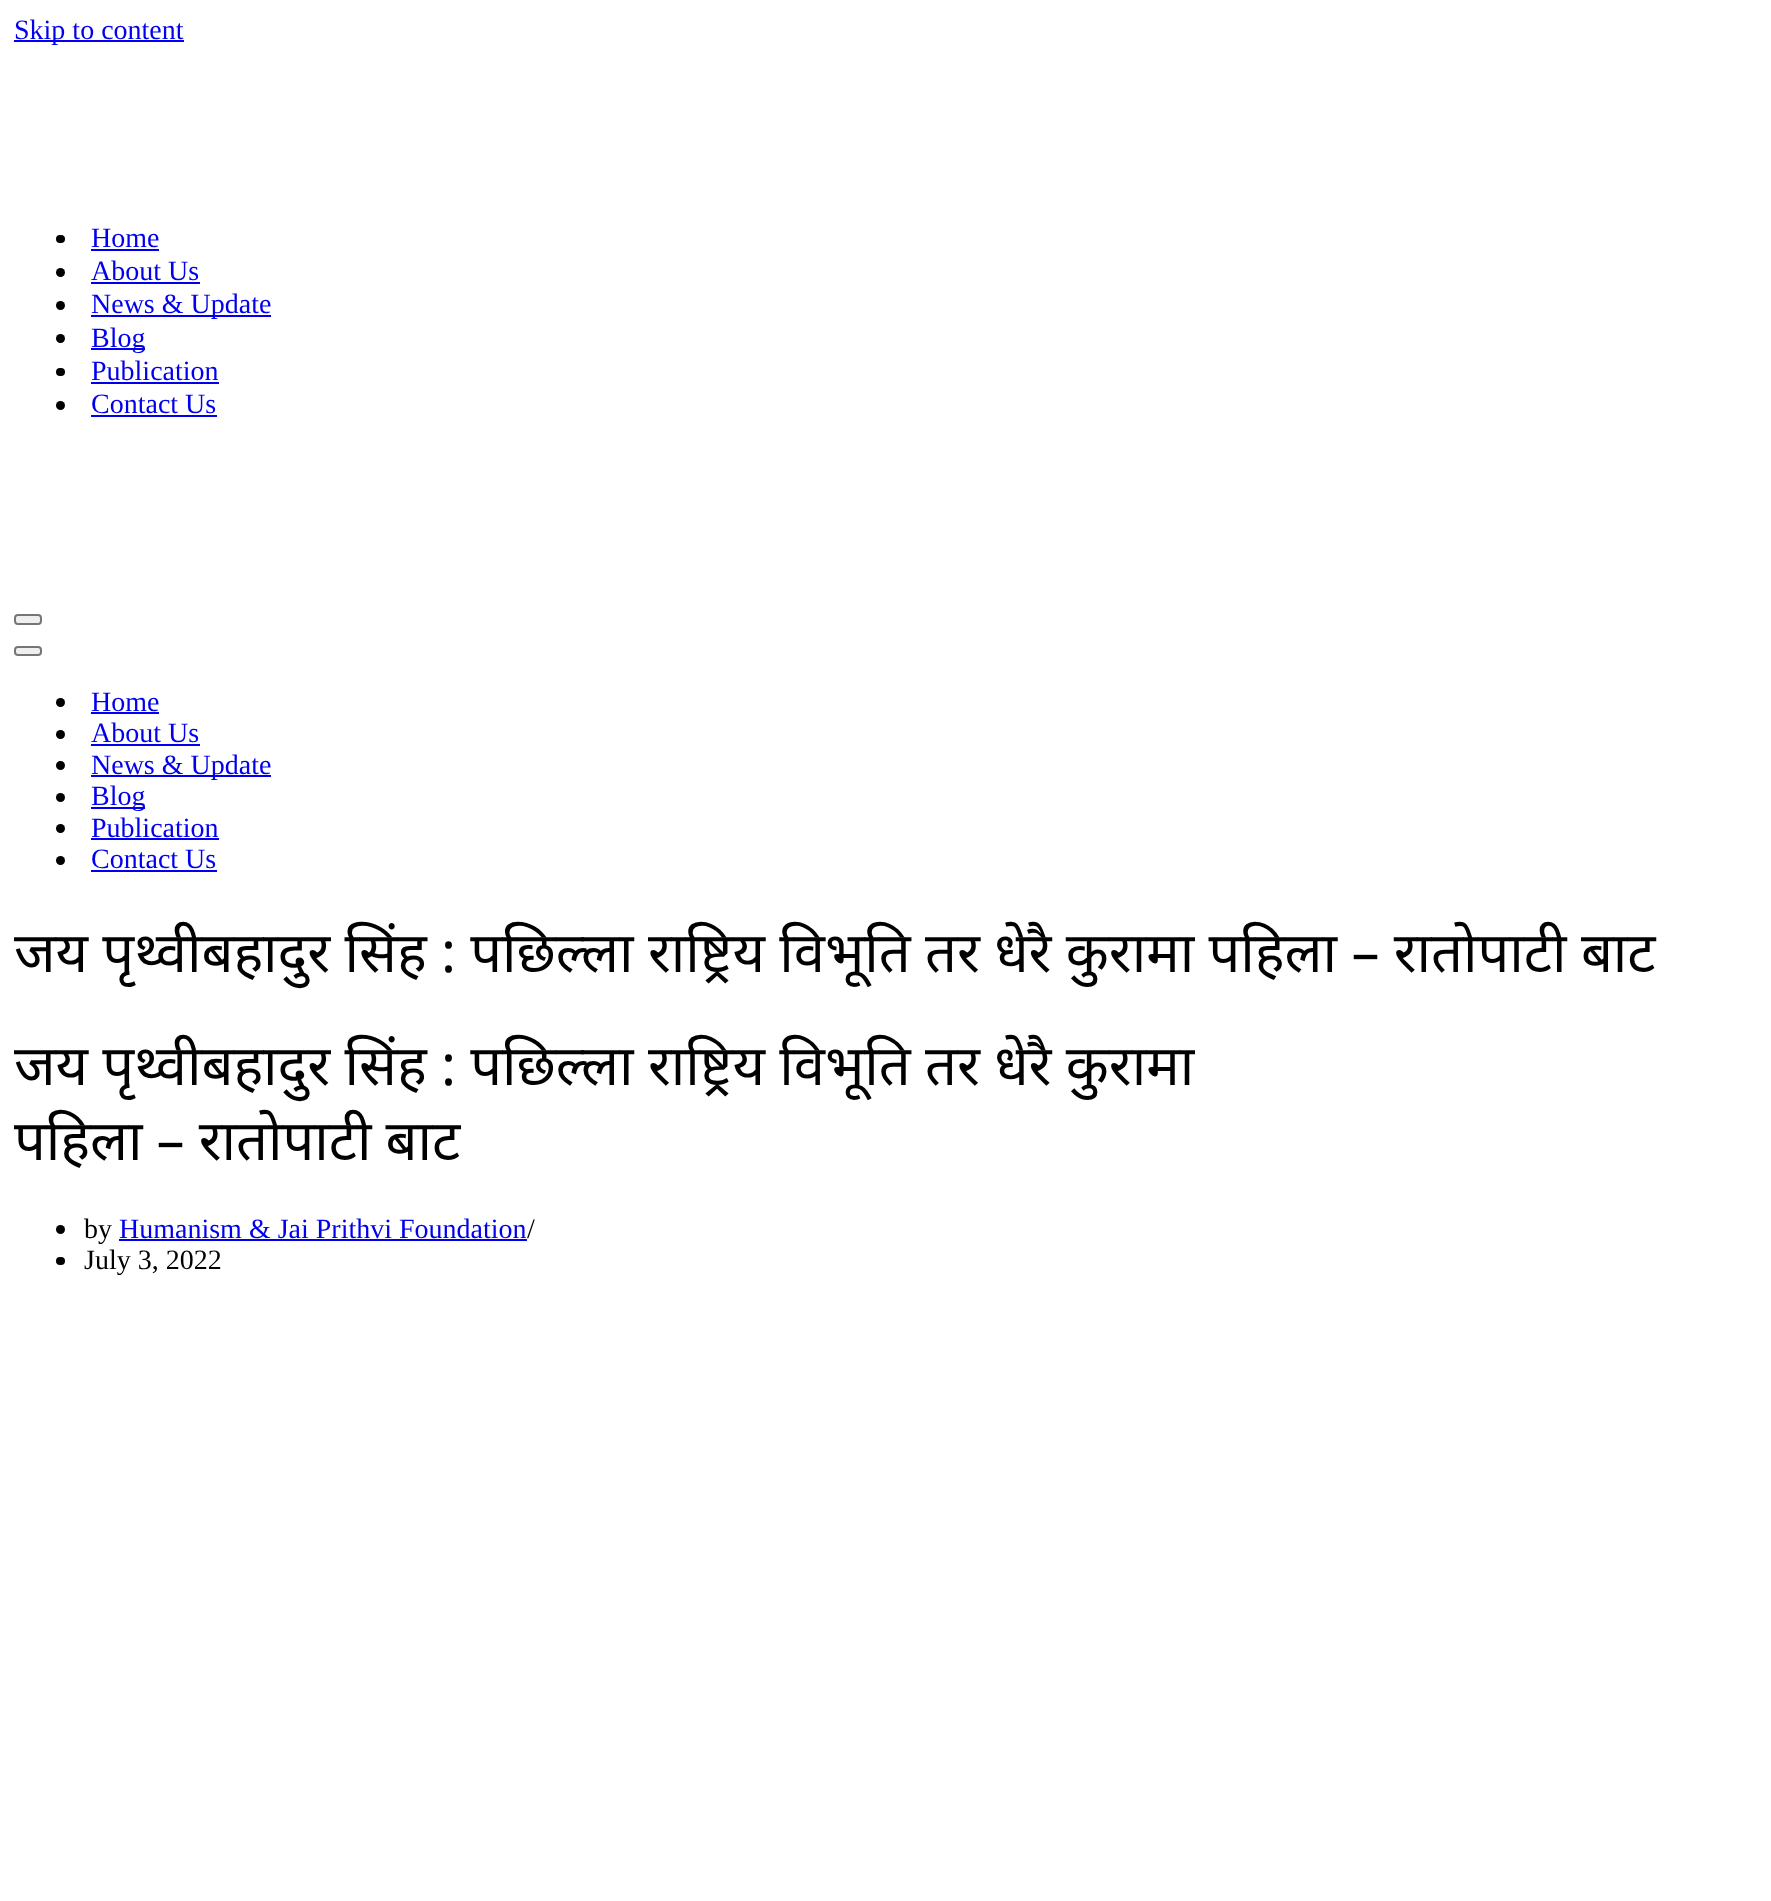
<svg xmlns="http://www.w3.org/2000/svg" width="1771" height="1901" viewBox="0 0 1771 1901">
  <rect width="100%" height="100%" fill="rgb(255,255,255)"/>
  <rect x="14" y="40" width="170" height="2" fill="rgb(0,0,238)"/>
  <text x="14" y="39" font-family="Liberation Serif" font-size="28" fill="rgb(0,0,238)">Skip to content</text>
  <rect x="56" y="235" width="9" height="8" rx="4" fill="rgb(0,0,0)"/>
  <text x="91" y="247" font-family="Liberation Serif" font-size="28" fill="rgb(0,0,238)">Home</text>
  <rect x="91" y="249" width="68" height="2" fill="rgb(0,0,238)"/>
  <circle cx="60.5" cy="272.5" r="4.5" fill="rgb(0,0,0)"/>
  <text x="91" y="280" font-family="Liberation Serif" font-size="28" fill="rgb(0,0,238)">About Us</text>
  <rect x="91" y="282" width="109" height="2" fill="rgb(0,0,238)"/>
  <circle cx="60.5" cy="305.5" r="4.5" fill="rgb(0,0,0)"/>
  <rect x="91" y="315" width="180" height="2" fill="rgb(0,0,238)"/>
  <text x="91" y="313" font-family="Liberation Serif" font-size="28" fill="rgb(0,0,238)">News &amp; Update</text>
  <circle cx="60.5" cy="338.5" r="4.5" fill="rgb(0,0,0)"/>
  <rect x="91" y="348" width="54" height="2" fill="rgb(0,0,238)"/>
  <text x="91" y="347" font-family="Liberation Serif" font-size="28" fill="rgb(0,0,238)">Blog</text>
  <rect x="56" y="368" width="9" height="8" rx="4" fill="rgb(0,0,0)"/>
  <text x="91" y="380" font-family="Liberation Serif" font-size="28" fill="rgb(0,0,238)">Publication</text>
  <rect x="91" y="382" width="128" height="2" fill="rgb(0,0,238)"/>
  <circle cx="60.5" cy="405.5" r="4.5" fill="rgb(0,0,0)"/>
  <text x="91" y="413" font-family="Liberation Serif" font-size="28" fill="rgb(0,0,238)">Contact Us</text>
  <rect x="91" y="415" width="126" height="2" fill="rgb(0,0,238)"/>
  <rect x="15" y="615" width="26" height="9" rx="3" fill="rgb(239,239,239)" stroke="rgb(118,118,118)" stroke-width="2"/>
  <rect x="15" y="647" width="26" height="8" rx="3" fill="rgb(239,239,239)" stroke="rgb(118,118,118)" stroke-width="2"/>
  <circle cx="60.5" cy="702.5" r="4.5" fill="rgb(0,0,0)"/>
  <text x="91" y="711" font-family="Liberation Serif" font-size="28" fill="rgb(0,0,238)">Home</text>
  <rect x="91" y="712" width="68" height="2" fill="rgb(0,0,238)"/>
  <circle cx="60.5" cy="734.5" r="4.5" fill="rgb(0,0,0)"/>
  <text x="91" y="742" font-family="Liberation Serif" font-size="28" fill="rgb(0,0,238)">About Us</text>
  <rect x="91" y="744" width="109" height="2" fill="rgb(0,0,238)"/>
  <circle cx="60.5" cy="765.5" r="4.5" fill="rgb(0,0,0)"/>
  <rect x="91" y="775" width="180" height="2" fill="rgb(0,0,238)"/>
  <text x="91" y="774" font-family="Liberation Serif" font-size="28" fill="rgb(0,0,238)">News &amp; Update</text>
  <circle cx="60.5" cy="797.5" r="4.5" fill="rgb(0,0,0)"/>
  <rect x="91" y="807" width="54" height="2" fill="rgb(0,0,238)"/>
  <text x="91" y="805" font-family="Liberation Serif" font-size="28" fill="rgb(0,0,238)">Blog</text>
  <circle cx="60.5" cy="828.5" r="4.5" fill="rgb(0,0,0)"/>
  <text x="91" y="837" font-family="Liberation Serif" font-size="28" fill="rgb(0,0,238)">Publication</text>
  <rect x="91" y="838" width="128" height="2" fill="rgb(0,0,238)"/>
  <circle cx="60.5" cy="860.5" r="4.5" fill="rgb(0,0,0)"/>
  <text x="91" y="868" font-family="Liberation Serif" font-size="28" fill="rgb(0,0,238)">Contact Us</text>
  <rect x="91" y="870" width="126" height="2" fill="rgb(0,0,238)"/>
  <g font-family="Noto Sans" font-size="56" fill="rgb(0,0,0)">
    <text x="14" y="972" word-spacing="-0.25">जय पृथ्वीबहादुर सिंह : पछिल्ला राष्ट्रिय विभूति तर धेरै कुरामा पहिला – रातोपाटी बाट</text>
    <text>
      <tspan x="14" y="1085" word-spacing="-0.25">जय पृथ्वीबहादुर सिंह : पछिल्ला राष्ट्रिय विभूति तर धेरै कुरामा</tspan>
      <tspan x="14" y="1160" word-spacing="-0.5">पहिला – रातोपाटी बाट</tspan>
    </text>
  </g>
  <circle cx="60.5" cy="1229.5" r="4.5" fill="rgb(0,0,0)"/>
  <text x="84" y="1238" font-family="Liberation Serif" font-size="28" fill="rgb(0,0,0)">by</text>
  <text x="119" y="1238" font-family="Liberation Serif" font-size="28" fill="rgb(0,0,238)">Humanism &amp; Jai Prithvi Foundation</text>
  <rect x="119" y="1239" width="408" height="2" fill="rgb(0,0,238)"/>
  <text x="527" y="1238" font-family="Liberation Serif" font-size="28" fill="rgb(0,0,0)">/</text>
  <rect x="56" y="1257" width="9" height="8" rx="4" fill="rgb(0,0,0)"/>
  <text x="84" y="1269" font-family="Liberation Serif" font-size="28" fill="rgb(0,0,0)">July 3, 2022</text>
</svg>
